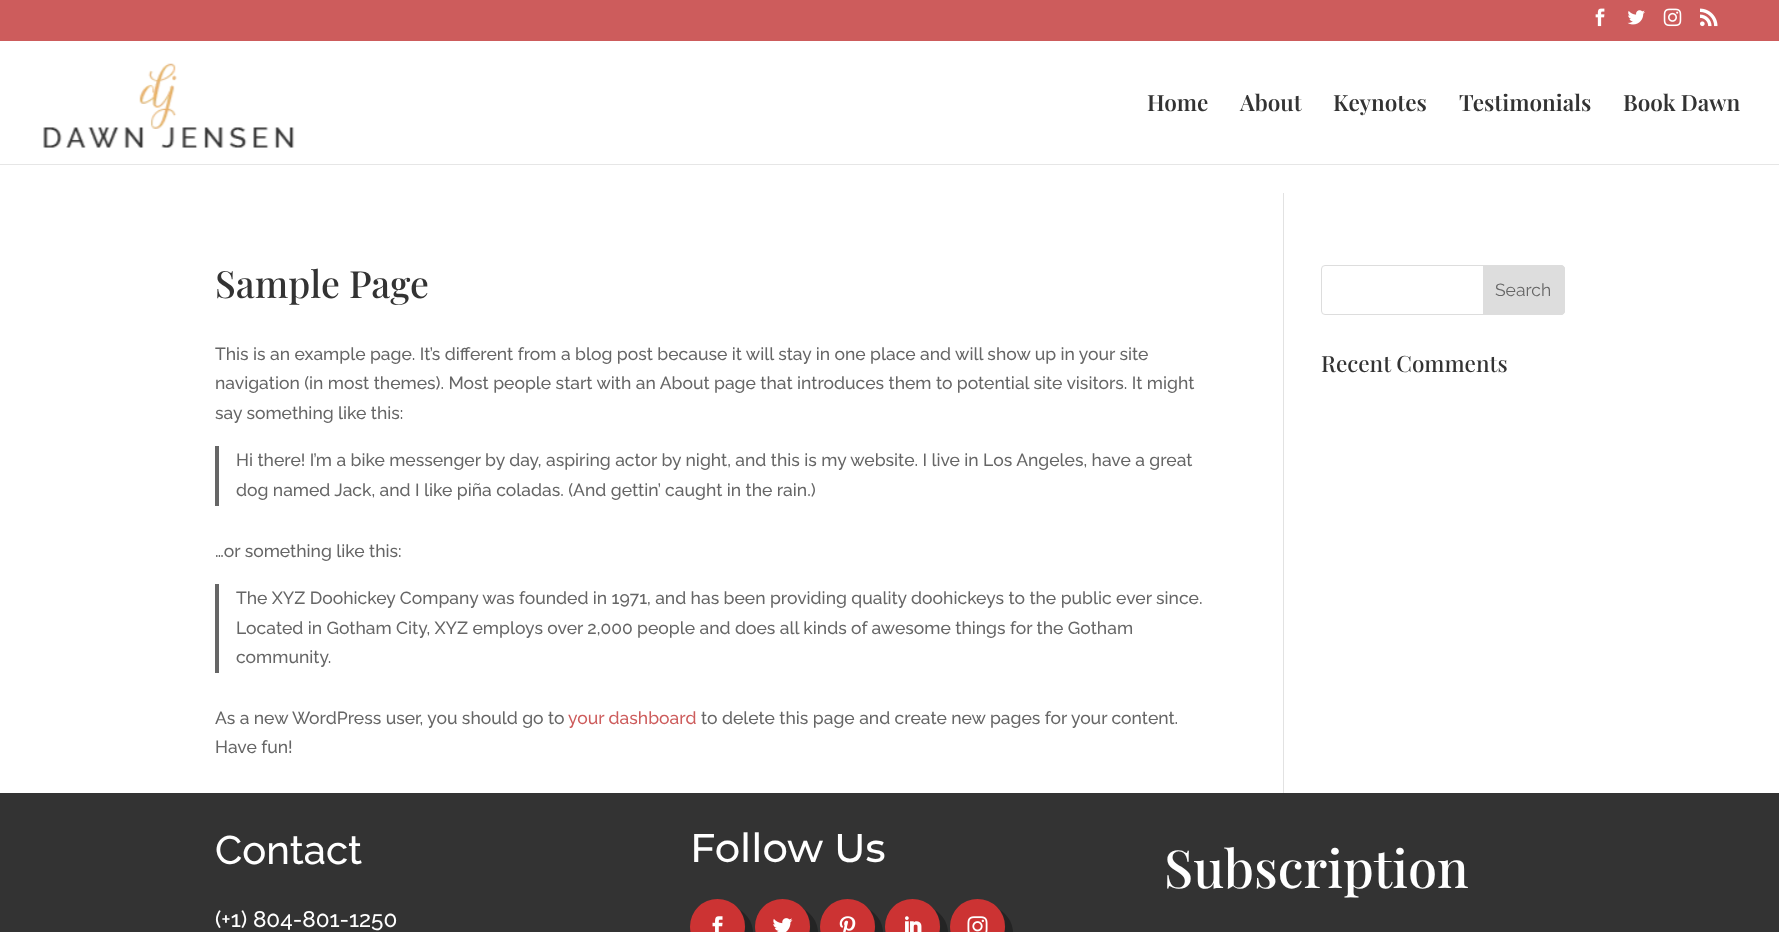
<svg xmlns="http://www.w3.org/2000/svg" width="1779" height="932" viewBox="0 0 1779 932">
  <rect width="100%" height="100%" fill="rgb(255,255,255)"/>
  <rect x="0" y="0" width="1779" height="41" fill="rgb(205,92,92)"/>
  <image x="1595" y="8" width="10" height="19" href="pic1.png"/>
  <image x="1627" y="10" width="18" height="15" href="pic2.png"/>
  <image x="1663" y="8" width="19" height="19" href="pic3.png"/>
  <image x="1700" y="8" width="18" height="19" href="pic4.png"/>
  <rect x="0" y="164" width="1779" height="1" fill="rgb(230,230,230)"/>
  <image x="43" y="63" width="252" height="85" href="pic5.png"/>
  <g font-family="Playfair Display" font-size="22.5" font-weight="600" fill="rgb(51,51,51)">
    <text x="1147" y="111">Home</text>
    <text x="1240" y="111">About</text>
    <text x="1333" y="111">Keynotes</text>
    <text x="1459" y="111">Testimonials</text>
    <text x="1623" y="111">Book Dawn</text>
  </g>
  <rect x="1283" y="193" width="1" height="600" fill="rgb(226,226,226)"/>
  <text x="215" y="298" font-family="Playfair Display" font-size="37.5" font-weight="500" fill="rgb(51,51,51)">Sample Page</text>
  <g font-family="Raleway" font-size="17.5" font-weight="500" fill="rgb(102,102,102)">
    <text>
      <tspan x="215" y="360">This is an example page. It’s different from a blog post because it will stay in one place and will show up in your site</tspan>
      <tspan x="215" y="389">navigation (in most themes). Most people start with an About page that introduces them to potential site visitors. It might</tspan>
      <tspan x="215" y="419">say something like this:</tspan>
    </text>
  </g>
  <rect x="215" y="446" width="4" height="60" fill="rgb(102,102,102)"/>
  <g font-family="Raleway" font-size="17.5" font-weight="500" fill="rgb(102,102,102)">
    <text>
      <tspan x="236" y="466">Hi there! I’m a bike messenger by day, aspiring actor by night, and this is my website. I live in Los Angeles, have a great</tspan>
      <tspan x="236" y="496">dog named Jack, and I like piña coladas. (And gettin’ caught in the rain.)</tspan>
    </text>
    <text x="215" y="557">…or something like this:</text>
  </g>
  <rect x="215" y="584" width="4" height="89" fill="rgb(102,102,102)"/>
  <g font-family="Raleway" font-size="17.5" font-weight="500" fill="rgb(102,102,102)">
    <text>
      <tspan x="236" y="604">The XYZ Doohickey Company was founded in 1971, and has been providing quality doohickeys to the public ever since.</tspan>
      <tspan x="236" y="634">Located in Gotham City, XYZ employs over 2,000 people and does all kinds of awesome things for the Gotham</tspan>
      <tspan x="236" y="663">community.</tspan>
    </text>
    <text x="215" y="724">As a new WordPress user, you should go to</text>
  </g>
  <text x="568" y="724" font-family="Raleway" font-size="17.5" font-weight="500" fill="rgb(205,92,92)">your dashboard</text>
  <g font-family="Raleway" font-size="17.5" font-weight="500" fill="rgb(102,102,102)">
    <text x="701" y="724">to delete this page and create new pages for your content.</text>
    <text x="215" y="753">Have fun!</text>
  </g>
  <rect x="1321.5" y="265.5" width="243" height="49" rx="3.5" fill="none" stroke="rgb(221,221,221)"/>
  <path d="M1483.5 265.5H1561C1563 265.5 1564.5 267 1564.5 269V311C1564.5 313 1563 314.5 1561 314.5H1483.5Z" fill="rgb(221,221,221)" stroke="rgb(221,221,221)"/>
  <text x="1495" y="296" font-family="Raleway" font-size="17.5" fill="rgb(102,102,102)">Search</text>
  <text x="1321" y="372" font-family="Playfair Display" font-size="22.5" font-weight="500" fill="rgb(51,51,51)">Recent Comments</text>
  <rect x="0" y="793" width="1779" height="139" fill="rgb(51,51,51)"/>
  <text x="215" y="864" font-family="Raleway" font-size="40" font-weight="500" fill="rgb(255,255,255)">Contact</text>
  <text x="215" y="927" font-family="Raleway" font-size="22.5" font-weight="500" fill="rgb(255,255,255)">(+1) 804-801-1250</text>
  <text x="690" y="862" font-family="Montserrat" font-size="40" font-weight="500" fill="rgb(255,255,255)">Follow Us</text>
  <path d="M703 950C721 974 760 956 752 926C750 919 746 914 740 910C757 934 729 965 703 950Z" fill="rgb(36,36,36)"/>
  <circle cx="717.5" cy="926.5" r="27.5" fill="rgb(204,51,51)"/>
  <image x="712" y="916" width="11" height="16" href="pic6.png"/>
  <path d="M768 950C786 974 825 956 817 926C815 919 811 914 805 910C822 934 794 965 768 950Z" fill="rgb(36,36,36)"/>
  <circle cx="782.5" cy="926.5" r="27.5" fill="rgb(204,51,51)"/>
  <image x="773" y="918" width="20" height="14" href="pic7.png"/>
  <path d="M833 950C851 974 890 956 882 926C880 919 876 914 870 910C887 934 859 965 833 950Z" fill="rgb(36,36,36)"/>
  <circle cx="847.5" cy="926.5" r="27.5" fill="rgb(204,51,51)"/>
  <image x="839" y="916" width="17" height="16" href="pic8.png"/>
  <path d="M898 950C916 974 955 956 947 926C945 919 941 914 935 910C952 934 924 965 898 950Z" fill="rgb(36,36,36)"/>
  <circle cx="912.5" cy="926.5" r="27.5" fill="rgb(204,51,51)"/>
  <image x="905" y="916" width="17" height="16" href="pic9.png"/>
  <path d="M963 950C981 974 1020 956 1012 926C1010 919 1006 914 1000 910C1017 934 989 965 963 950Z" fill="rgb(36,36,36)"/>
  <circle cx="977.5" cy="926.5" r="27.5" fill="rgb(204,51,51)"/>
  <image x="967" y="916" width="21" height="16" href="pic10.png"/>
  <text x="1164" y="888" font-family="Playfair Display" font-size="52.5" font-weight="500" fill="rgb(255,255,255)">Subscription</text>
</svg>
